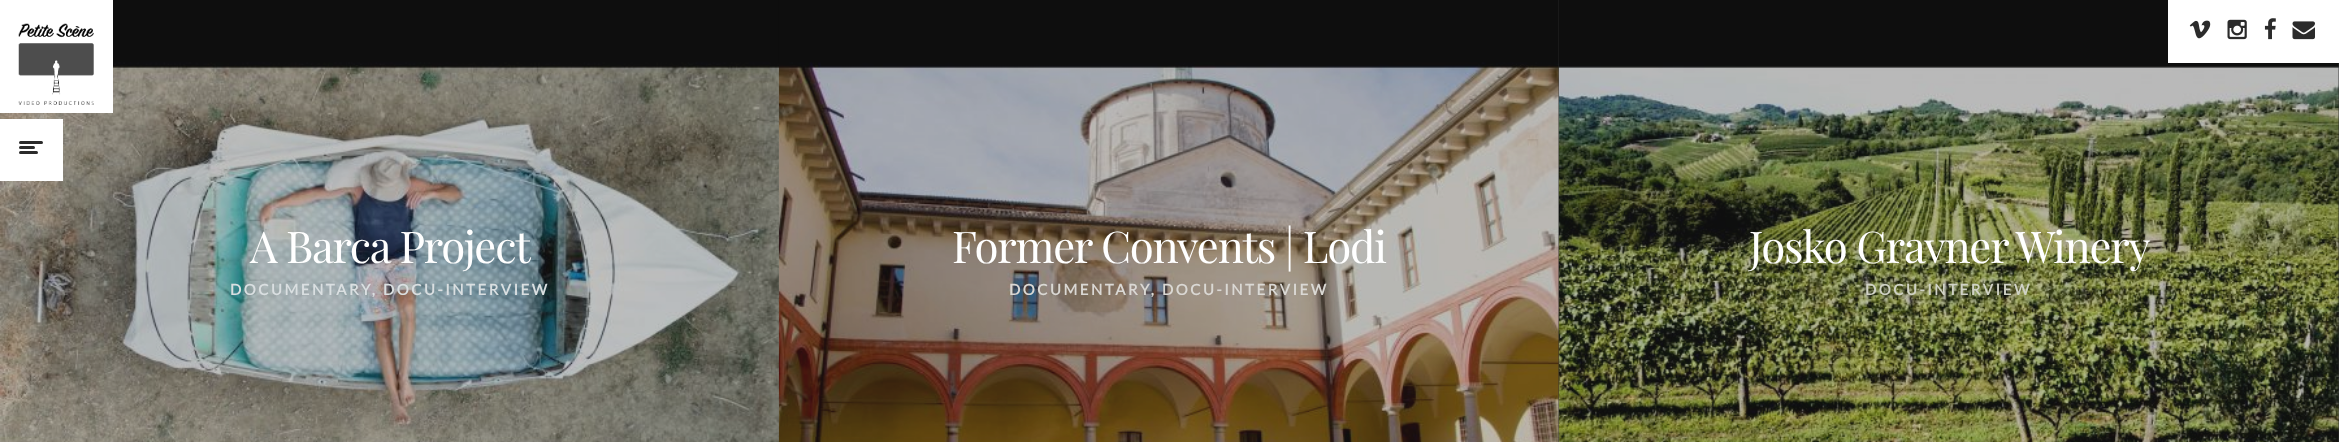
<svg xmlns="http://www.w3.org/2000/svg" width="2339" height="442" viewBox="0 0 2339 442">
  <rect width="100%" height="100%" fill="rgb(47,47,46)"/>
  <image x="0" y="0" width="779" height="442" href="pic6.png"/>
  <rect x="0" y="0" width="113" height="113" fill="rgb(255,255,255)"/>
  <image x="18" y="23" width="76" height="82" href="pic1.png"/>
  <rect x="0" y="119" width="63" height="62" fill="rgb(255,255,255)"/>
  <rect x="19" y="141" width="24" height="3" rx="1.5" fill="rgb(43,43,43)"/>
  <rect x="19" y="146" width="16" height="3" rx="1.5" fill="rgb(43,43,43)"/>
  <rect x="19" y="151" width="19" height="3" rx="1.5" fill="rgb(43,43,43)"/>
  <image x="778" y="0" width="781" height="442" href="pic7.png"/>
  <rect x="779" y="0" width="780" height="442" fill="rgba(47,47,46,0.3)"/>
  <image x="1558" y="0" width="781" height="442" href="pic8.png"/>
  <rect x="2168" y="0" width="171" height="63" fill="rgb(255,255,255)"/>
  <image x="2189" y="20" width="22" height="19" href="pic2.png"/>
  <image x="2227" y="19" width="20" height="21" href="pic3.png"/>
  <image x="2264" y="18" width="12" height="22" href="pic4.png"/>
  <image x="2292" y="21" width="23" height="19" href="pic5.png"/>
  <text x="250" y="263" font-family="Playfair Display" font-size="43.75" letter-spacing="-1.25" fill="rgb(255,255,255)">A Barca Project</text>
  <text x="230" y="295" font-family="Lato" font-size="15" font-weight="bold" letter-spacing="2.5" fill="rgb(218,223,225)">DOCUMENTARY, DOCU-INTERVIEW</text>
  <text x="952" y="263" font-family="Playfair Display" font-size="43.75" letter-spacing="-1.25" fill="rgb(255,255,255)">Former Convents | Lodi</text>
  <text x="1009" y="295" font-family="Lato" font-size="15" font-weight="bold" letter-spacing="2.5" fill="rgb(218,216,212)">DOCUMENTARY, DOCU-INTERVIEW</text>
  <text x="1749" y="263" font-family="Playfair Display" font-size="43.75" letter-spacing="-1.25" fill="rgb(255,255,255)">Josko Gravner Winery</text>
  <text x="1865" y="295" font-family="Lato" font-size="15" font-weight="bold" letter-spacing="2.5" fill="rgb(208,210,198)">DOCU-INTERVIEW</text>
</svg>
